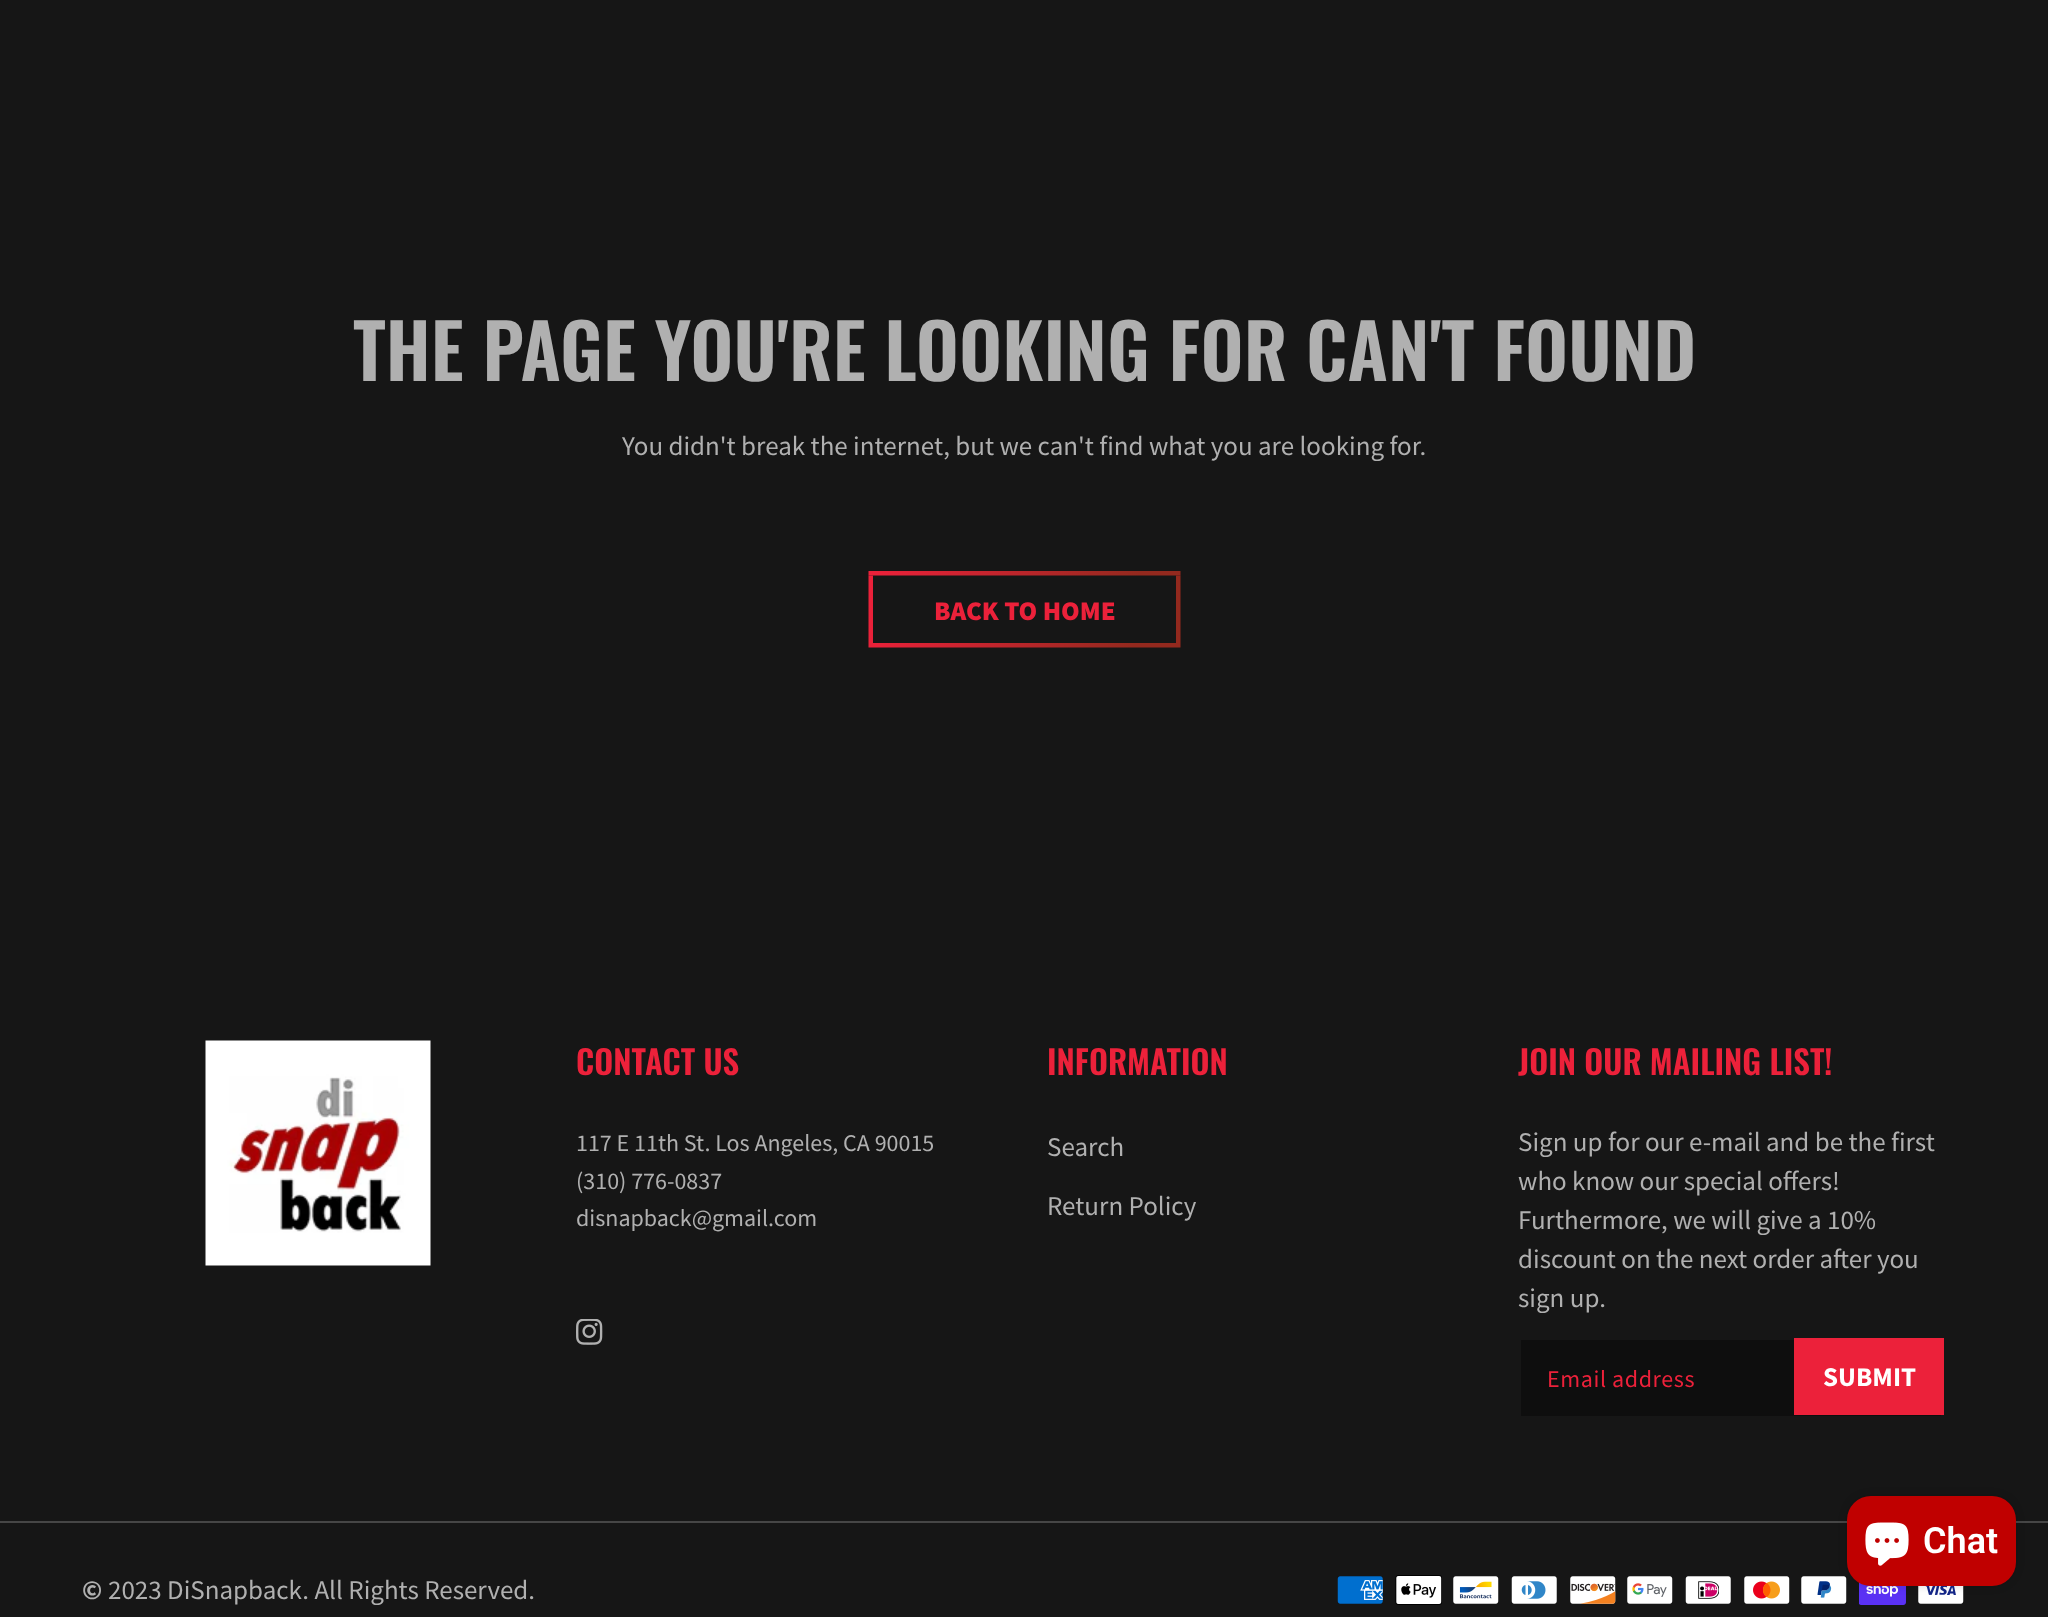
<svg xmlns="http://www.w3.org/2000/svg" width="2048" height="1617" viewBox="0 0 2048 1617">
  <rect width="100%" height="100%" fill="rgb(22,22,22)"/>
  <text x="353" y="381" font-family="Oswald" font-size="75" font-weight="600" fill="rgb(176,176,176)">THE PAGE YOU'RE LOOKING FOR CAN'T FOUND</text>
  <text x="622" y="455" font-family="Source Sans Pro" font-size="27" fill="rgb(176,176,176)">You didn't break the internet, but we can't find what you are looking for.</text>
  <image x="868" y="571" width="313" height="77" href="pic1.png"/>
  <text x="934" y="620" font-family="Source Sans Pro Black" font-size="27" font-weight="900" fill="rgb(236,33,58)">BACK TO HOME</text>
  <image x="205" y="1040" width="226" height="226" href="pic2.png"/>
  <text x="576" y="1075" font-family="Oswald" font-size="33" font-weight="600" fill="rgb(236,33,58)">CONTACT US</text>
  <g font-family="Source Sans Pro" font-size="24" fill="rgb(176,176,176)">
    <text>
      <tspan x="576" y="1151">117 E 11th St. Los Angeles, CA 90015</tspan>
      <tspan x="576" y="1189">(310) 776-0837</tspan>
      <tspan x="576" y="1226">disnapback@gmail.com</tspan>
    </text>
  </g>
  <image x="576" y="1319" width="27" height="26" href="pic3.png"/>
  <text x="1047" y="1075" font-family="Oswald" font-size="33" font-weight="600" fill="rgb(236,33,58)">INFORMATION</text>
  <g font-family="Source Sans Pro" font-size="27" fill="rgb(176,176,176)">
    <text x="1047" y="1156">Search</text>
    <text x="1047" y="1215">Return Policy</text>
  </g>
  <text x="1518" y="1075" font-family="Oswald" font-size="33" font-weight="600" fill="rgb(236,33,58)">JOIN OUR MAILING LIST!</text>
  <g font-family="Source Sans Pro" font-size="27" fill="rgb(176,176,176)">
    <text>
      <tspan x="1518" y="1151">Sign up for our e-mail and be the first</tspan>
      <tspan x="1518" y="1190">who know our special offers!</tspan>
      <tspan x="1518" y="1229">Furthermore, we will give a 10%</tspan>
      <tspan x="1518" y="1268">discount on the next order after you</tspan>
      <tspan x="1518" y="1307">sign up.</tspan>
    </text>
  </g>
  <rect x="1521" y="1340" width="420" height="76" fill="rgb(14,14,14)"/>
  <text x="1547" y="1387" font-family="Source Sans Pro" font-size="24" letter-spacing="0.6" fill="rgb(236,33,58)">Email address</text>
  <rect x="1794" y="1338" width="150" height="77" fill="rgb(236,33,58)"/>
  <text x="1823" y="1386" font-family="Source Sans Pro" font-size="27" font-weight="bold" fill="rgb(255,255,255)">SUBMIT</text>
  <rect x="0" y="1521" width="2048" height="2" fill="rgb(70,70,70)"/>
  <text x="82" y="1599" font-family="Source Sans Pro" font-size="27" font-weight="bold" fill="rgb(176,176,176)">©</text>
  <text x="108" y="1599" font-family="Source Sans Pro" font-size="27" fill="rgb(176,176,176)">2023 DiSnapback. All Rights Reserved.</text>
  <image x="1337" y="1576" width="46" height="28" href="pic4.png"/>
  <image x="1395" y="1575" width="47" height="30" href="pic5.png"/>
  <image x="1453" y="1576" width="46" height="28" href="pic6.png"/>
  <image x="1511" y="1576" width="46" height="28" href="pic7.png"/>
  <image x="1570" y="1576" width="46" height="28" href="pic8.png"/>
  <image x="1627" y="1576" width="46" height="28" href="pic9.png"/>
  <image x="1685" y="1576" width="46" height="28" href="pic10.png"/>
  <image x="1744" y="1576" width="46" height="28" href="pic11.png"/>
  <image x="1801" y="1576" width="46" height="28" href="pic12.png"/>
  <image x="1859" y="1582" width="47" height="23" href="pic13.png"/>
  <image x="1918" y="1586" width="46" height="18" href="pic14.png"/>
  <rect x="1847" y="1496" width="169" height="90" rx="24" fill="rgba(0,0,0,0.15)" filter="blur(4px)"/>
  <rect x="1847" y="1496" width="169" height="90" rx="24" fill="rgb(192,0,0)"/>
  <image x="1865" y="1522" width="44" height="44" href="pic15.png"/>
  <text x="1923" y="1553" font-family="Roboto" font-size="36" font-weight="600" fill="rgb(255,255,255)">Chat</text>
</svg>
